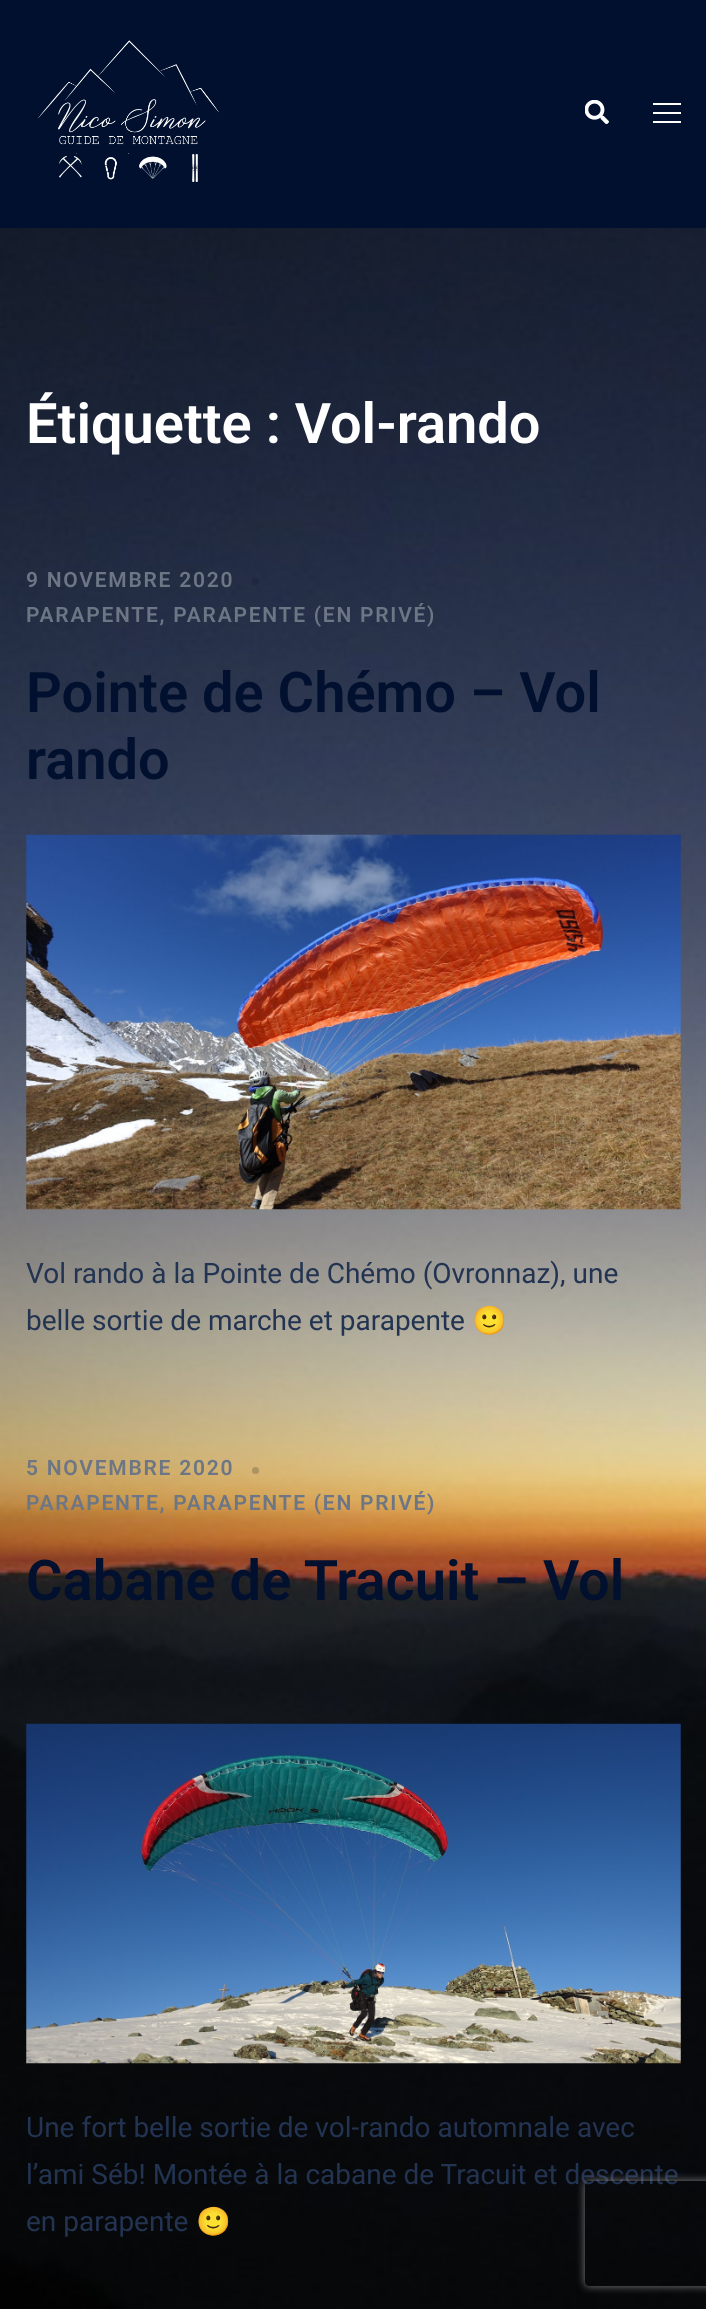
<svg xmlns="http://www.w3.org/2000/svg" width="706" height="2309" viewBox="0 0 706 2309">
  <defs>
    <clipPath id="clip1"><path d="M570 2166H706V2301H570ZM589 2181H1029C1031 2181 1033 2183 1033 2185V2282C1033 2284 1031 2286 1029 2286H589C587 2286 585 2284 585 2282V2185C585 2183 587 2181 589 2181Z" clip-rule="evenodd"/></clipPath>
  </defs>
  <rect width="100%" height="100%" fill="rgb(255,255,255)"/>
  <image x="0" y="228" width="706" height="2081" href="pic1.png"/>
  <rect x="0" y="0" width="706" height="228" fill="rgb(0,16,46)"/>
  <image x="37" y="40" width="182" height="142" href="pic2.png"/>
  <image x="585" y="100" width="24" height="24" href="pic3.png"/>
  <rect x="653" y="103" width="28" height="2" fill="rgb(255,255,255)"/>
  <rect x="653" y="112" width="28" height="2" fill="rgb(255,255,255)"/>
  <rect x="653" y="121" width="28" height="2" fill="rgb(255,255,255)"/>
  <text x="26" y="443" font-family="Roboto" font-size="56" font-weight="600" fill="rgb(255,255,255)">Étiquette : Vol-rando</text>
  <text x="26" y="587" font-family="Roboto" font-size="21" font-weight="600" letter-spacing="1.75" fill="rgb(109,118,133)">9 NOVEMBRE 2020</text>
  <circle cx="255.5" cy="581.5" r="3.5" fill="rgb(30,40,64)"/>
  <text x="26" y="622" font-family="Roboto" font-size="21" font-weight="600" letter-spacing="1.75" fill="rgb(109,118,133)">PARAPENTE, PARAPENTE (EN PRIVÉ)</text>
  <g font-family="Roboto" font-size="56" font-weight="600" fill="rgb(0,16,46)">
    <text>
      <tspan x="26" y="712">Pointe de Chémo – Vol</tspan>
      <tspan x="26" y="779">rando</tspan>
    </text>
  </g>
  <image x="26" y="834" width="655" height="376" href="pic4.png"/>
  <g font-family="Roboto" font-size="28" fill="rgb(35,52,82)">
    <text>
      <tspan x="26" y="1283">Vol rando à la Pointe de Chémo (Ovronnaz), une</tspan>
      <tspan x="26" y="1330">belle sortie de marche et parapente</tspan>
    </text>
  </g>
  <text x="472" y="1330" font-family="Noto Color Emoji" font-size="28" fill="rgb(35,52,82)">🙂</text>
  <text x="26" y="1475" font-family="Roboto" font-size="21" font-weight="600" letter-spacing="1.75" fill="rgb(109,118,133)">5 NOVEMBRE 2020</text>
  <circle cx="255.5" cy="1470.5" r="3.5" fill="rgba(0,16,46,0.2)"/>
  <text x="26" y="1510" font-family="Roboto" font-size="21" font-weight="600" letter-spacing="1.75" fill="rgb(109,118,133)">PARAPENTE, PARAPENTE (EN PRIVÉ)</text>
  <text x="26" y="1600" font-family="Roboto" font-size="56" font-weight="600" fill="rgb(0,16,46)">Cabane de Tracuit – Vol</text>
  <image x="26" y="1723" width="655" height="341" href="pic5.png"/>
  <g font-family="Roboto" font-size="28" fill="rgb(35,52,82)">
    <text>
      <tspan x="26" y="2137">Une fort belle sortie de vol-rando automnale avec</tspan>
      <tspan x="26" y="2184">l’ami Séb! Montée à la cabane de Tracuit et descente</tspan>
      <tspan x="26" y="2231">en parapente</tspan>
    </text>
  </g>
  <text x="196" y="2231" font-family="Noto Color Emoji" font-size="28" fill="rgb(35,52,82)">🙂</text>
  <g clip-path="url(#clip1)">
    <rect x="585" y="2181" width="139" height="105" rx="4" fill="rgb(128,128,128)" filter="blur(4.5px)"/>
  </g>
</svg>
